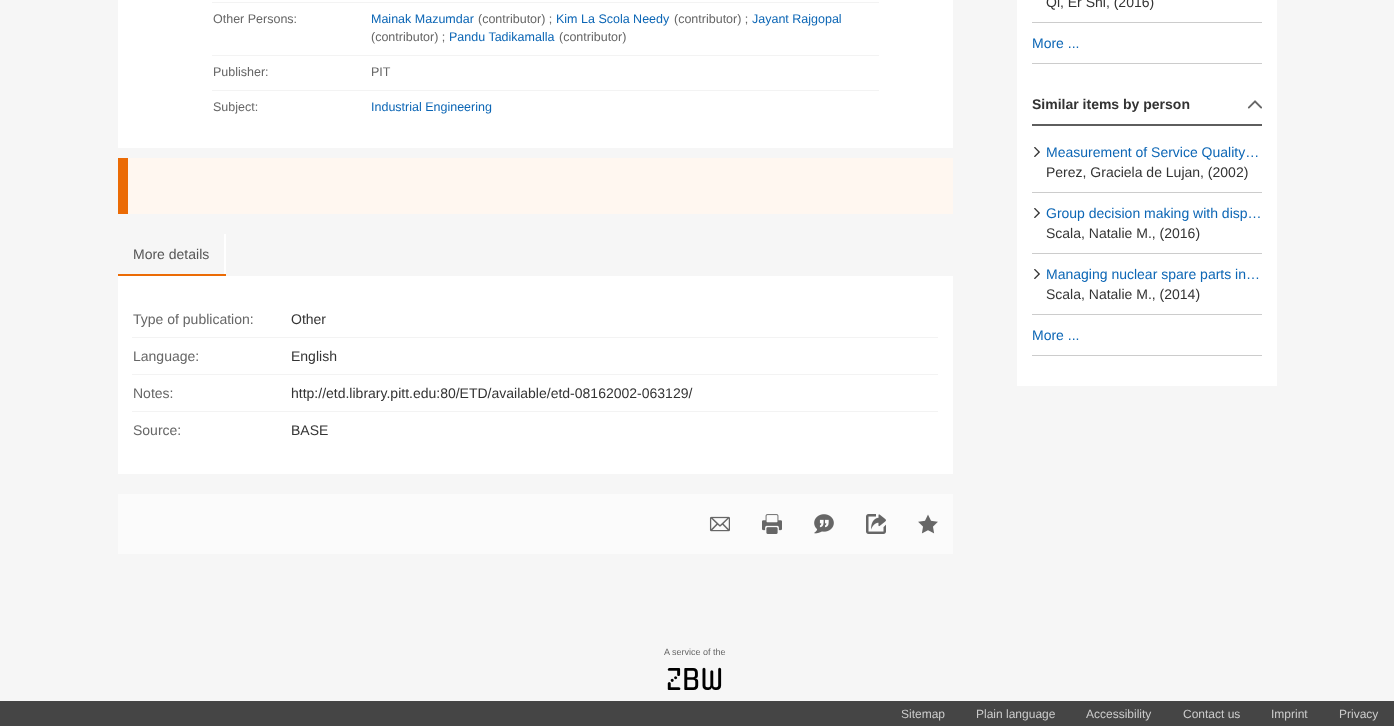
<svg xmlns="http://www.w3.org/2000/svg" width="1394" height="726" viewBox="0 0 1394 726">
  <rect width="100%" height="100%" fill="rgb(246,246,246)"/>
  <rect x="118" y="0" width="835" height="148" fill="rgb(255,255,255)"/>
  <rect x="212" y="2" width="667" height="1" fill="rgb(243,243,243)"/>
  <rect x="212" y="55" width="667" height="1" fill="rgb(243,243,243)"/>
  <text x="213" y="23" font-family="Liberation Sans" font-size="12.5" fill="rgb(102,102,102)">Other Persons:</text>
  <text x="371" y="23" font-family="Liberation Sans" font-size="12.5" fill="rgb(12,102,181)">Mainak Mazumdar</text>
  <text x="478" y="23" font-family="Liberation Sans" font-size="12.5" fill="rgb(102,102,102)">(contributor) ;</text>
  <text x="556" y="23" font-family="Liberation Sans" font-size="12.5" fill="rgb(12,102,181)">Kim La Scola Needy</text>
  <text x="674" y="23" font-family="Liberation Sans" font-size="12.5" fill="rgb(102,102,102)">(contributor) ;</text>
  <text x="752" y="23" font-family="Liberation Sans" font-size="12.5" fill="rgb(12,102,181)">Jayant Rajgopal</text>
  <text x="371" y="41" font-family="Liberation Sans" font-size="12.5" fill="rgb(102,102,102)">(contributor) ;</text>
  <text x="449" y="41" font-family="Liberation Sans" font-size="12.5" fill="rgb(12,102,181)">Pandu Tadikamalla</text>
  <text x="559" y="41" font-family="Liberation Sans" font-size="12.5" fill="rgb(102,102,102)">(contributor)</text>
  <rect x="212" y="90" width="667" height="1" fill="rgb(243,243,243)"/>
  <g font-family="Liberation Sans" font-size="12.5" fill="rgb(102,102,102)">
    <text x="213" y="76">Publisher:</text>
    <text x="371" y="76">PIT</text>
    <text x="213" y="111">Subject:</text>
  </g>
  <text x="371" y="111" font-family="Liberation Sans" font-size="12.5" fill="rgb(12,102,181)">Industrial Engineering</text>
  <rect x="128" y="158" width="825" height="56" fill="rgb(255,247,240)"/>
  <rect x="118" y="158" width="10" height="56" fill="rgb(235,107,5)"/>
  <rect x="224" y="234" width="2" height="40" fill="rgb(255,255,255)"/>
  <rect x="118" y="274" width="108" height="2" fill="rgb(235,107,5)"/>
  <text x="133" y="259" font-family="Liberation Sans" font-size="14" fill="rgb(85,85,85)">More details</text>
  <rect x="118" y="276" width="835" height="198" fill="rgb(255,255,255)"/>
  <rect x="132" y="337" width="806" height="1" fill="rgb(243,243,243)"/>
  <text x="133" y="324" font-family="Liberation Sans" font-size="14" fill="rgb(102,102,102)">Type of publication:</text>
  <text x="291" y="324" font-family="Liberation Sans" font-size="14" fill="rgb(51,51,51)">Other</text>
  <rect x="132" y="374" width="806" height="1" fill="rgb(243,243,243)"/>
  <text x="133" y="361" font-family="Liberation Sans" font-size="14" fill="rgb(102,102,102)">Language:</text>
  <text x="291" y="361" font-family="Liberation Sans" font-size="14" fill="rgb(51,51,51)">English</text>
  <rect x="132" y="411" width="806" height="1" fill="rgb(243,243,243)"/>
  <text x="133" y="398" font-family="Liberation Sans" font-size="14" fill="rgb(102,102,102)">Notes:</text>
  <text x="291" y="398" font-family="Liberation Sans" font-size="14" fill="rgb(51,51,51)">http://etd.library.pitt.edu:80/ETD/available/etd-08162002-063129/</text>
  <text x="133" y="435" font-family="Liberation Sans" font-size="14" fill="rgb(102,102,102)">Source:</text>
  <text x="291" y="435" font-family="Liberation Sans" font-size="14" fill="rgb(51,51,51)">BASE</text>
  <rect x="118" y="494" width="835" height="60" fill="rgb(251,251,251)"/>
  <image x="709" y="516" width="21" height="16" href="pic1.png"/>
  <image x="762" y="514" width="20" height="20" href="pic2.png"/>
  <image x="814" y="514" width="20" height="20" href="pic3.png"/>
  <image x="866" y="514" width="20" height="20" href="pic4.png"/>
  <image x="918" y="514" width="20" height="20" href="pic5.png"/>
  <rect x="1017" y="0" width="260" height="386" fill="rgb(255,255,255)"/>
  <rect x="1032" y="22" width="230" height="1" fill="rgb(204,204,204)"/>
  <text x="1046" y="7" font-family="Liberation Sans" font-size="14" fill="rgb(51,51,51)">Qi, Er Shi, (2016)</text>
  <rect x="1032" y="63" width="230" height="1" fill="rgb(204,204,204)"/>
  <text x="1032" y="48" font-family="Liberation Sans" font-size="14" fill="rgb(12,102,181)">More ...</text>
  <rect x="1032" y="124" width="230" height="2" fill="rgb(94,94,94)"/>
  <text x="1032" y="109" font-family="Liberation Sans" font-size="14" font-weight="bold" fill="rgb(51,51,51)">Similar items by person</text>
  <image x="1247" y="100" width="15" height="9" href="pic6.png"/>
  <rect x="1032" y="192" width="230" height="1" fill="rgb(204,204,204)"/>
  <image x="1034" y="147" width="6" height="10" href="pic7.png"/>
  <text x="1046" y="157" font-family="Liberation Sans" font-size="14" fill="rgb(12,102,181)">Measurement of Service Quality…</text>
  <text x="1046" y="177" font-family="Liberation Sans" font-size="14" fill="rgb(51,51,51)">Perez, Graciela de Lujan, (2002)</text>
  <rect x="1032" y="253" width="230" height="1" fill="rgb(204,204,204)"/>
  <image x="1034" y="208" width="6" height="10" href="pic7.png"/>
  <text x="1046" y="218" font-family="Liberation Sans" font-size="14" fill="rgb(12,102,181)">Group decision making with disp…</text>
  <text x="1046" y="238" font-family="Liberation Sans" font-size="14" fill="rgb(51,51,51)">Scala, Natalie M., (2016)</text>
  <rect x="1032" y="314" width="230" height="1" fill="rgb(204,204,204)"/>
  <image x="1034" y="269" width="6" height="10" href="pic7.png"/>
  <text x="1046" y="279" font-family="Liberation Sans" font-size="14" fill="rgb(12,102,181)">Managing nuclear spare parts in…</text>
  <text x="1046" y="299" font-family="Liberation Sans" font-size="14" fill="rgb(51,51,51)">Scala, Natalie M., (2014)</text>
  <rect x="1032" y="355" width="230" height="1" fill="rgb(204,204,204)"/>
  <text x="1032" y="340" font-family="Liberation Sans" font-size="14" fill="rgb(12,102,181)">More ...</text>
  <text x="664" y="655" font-family="Liberation Sans" font-size="9" fill="rgb(102,102,102)">A service of the</text>
  <text x="666" y="690" font-family="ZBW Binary" font-size="30" fill="rgb(0,0,0)">zbw</text>
  <rect x="0" y="701" width="1394" height="25" fill="rgb(69,69,69)"/>
  <g font-family="Liberation Sans" font-size="12" fill="rgb(204,204,204)">
    <text x="901" y="718">Sitemap</text>
    <text x="976" y="718">Plain language</text>
    <text x="1086" y="718">Accessibility</text>
    <text x="1183" y="718">Contact us</text>
    <text x="1271" y="718">Imprint</text>
    <text x="1339" y="718">Privacy</text>
  </g>
</svg>
